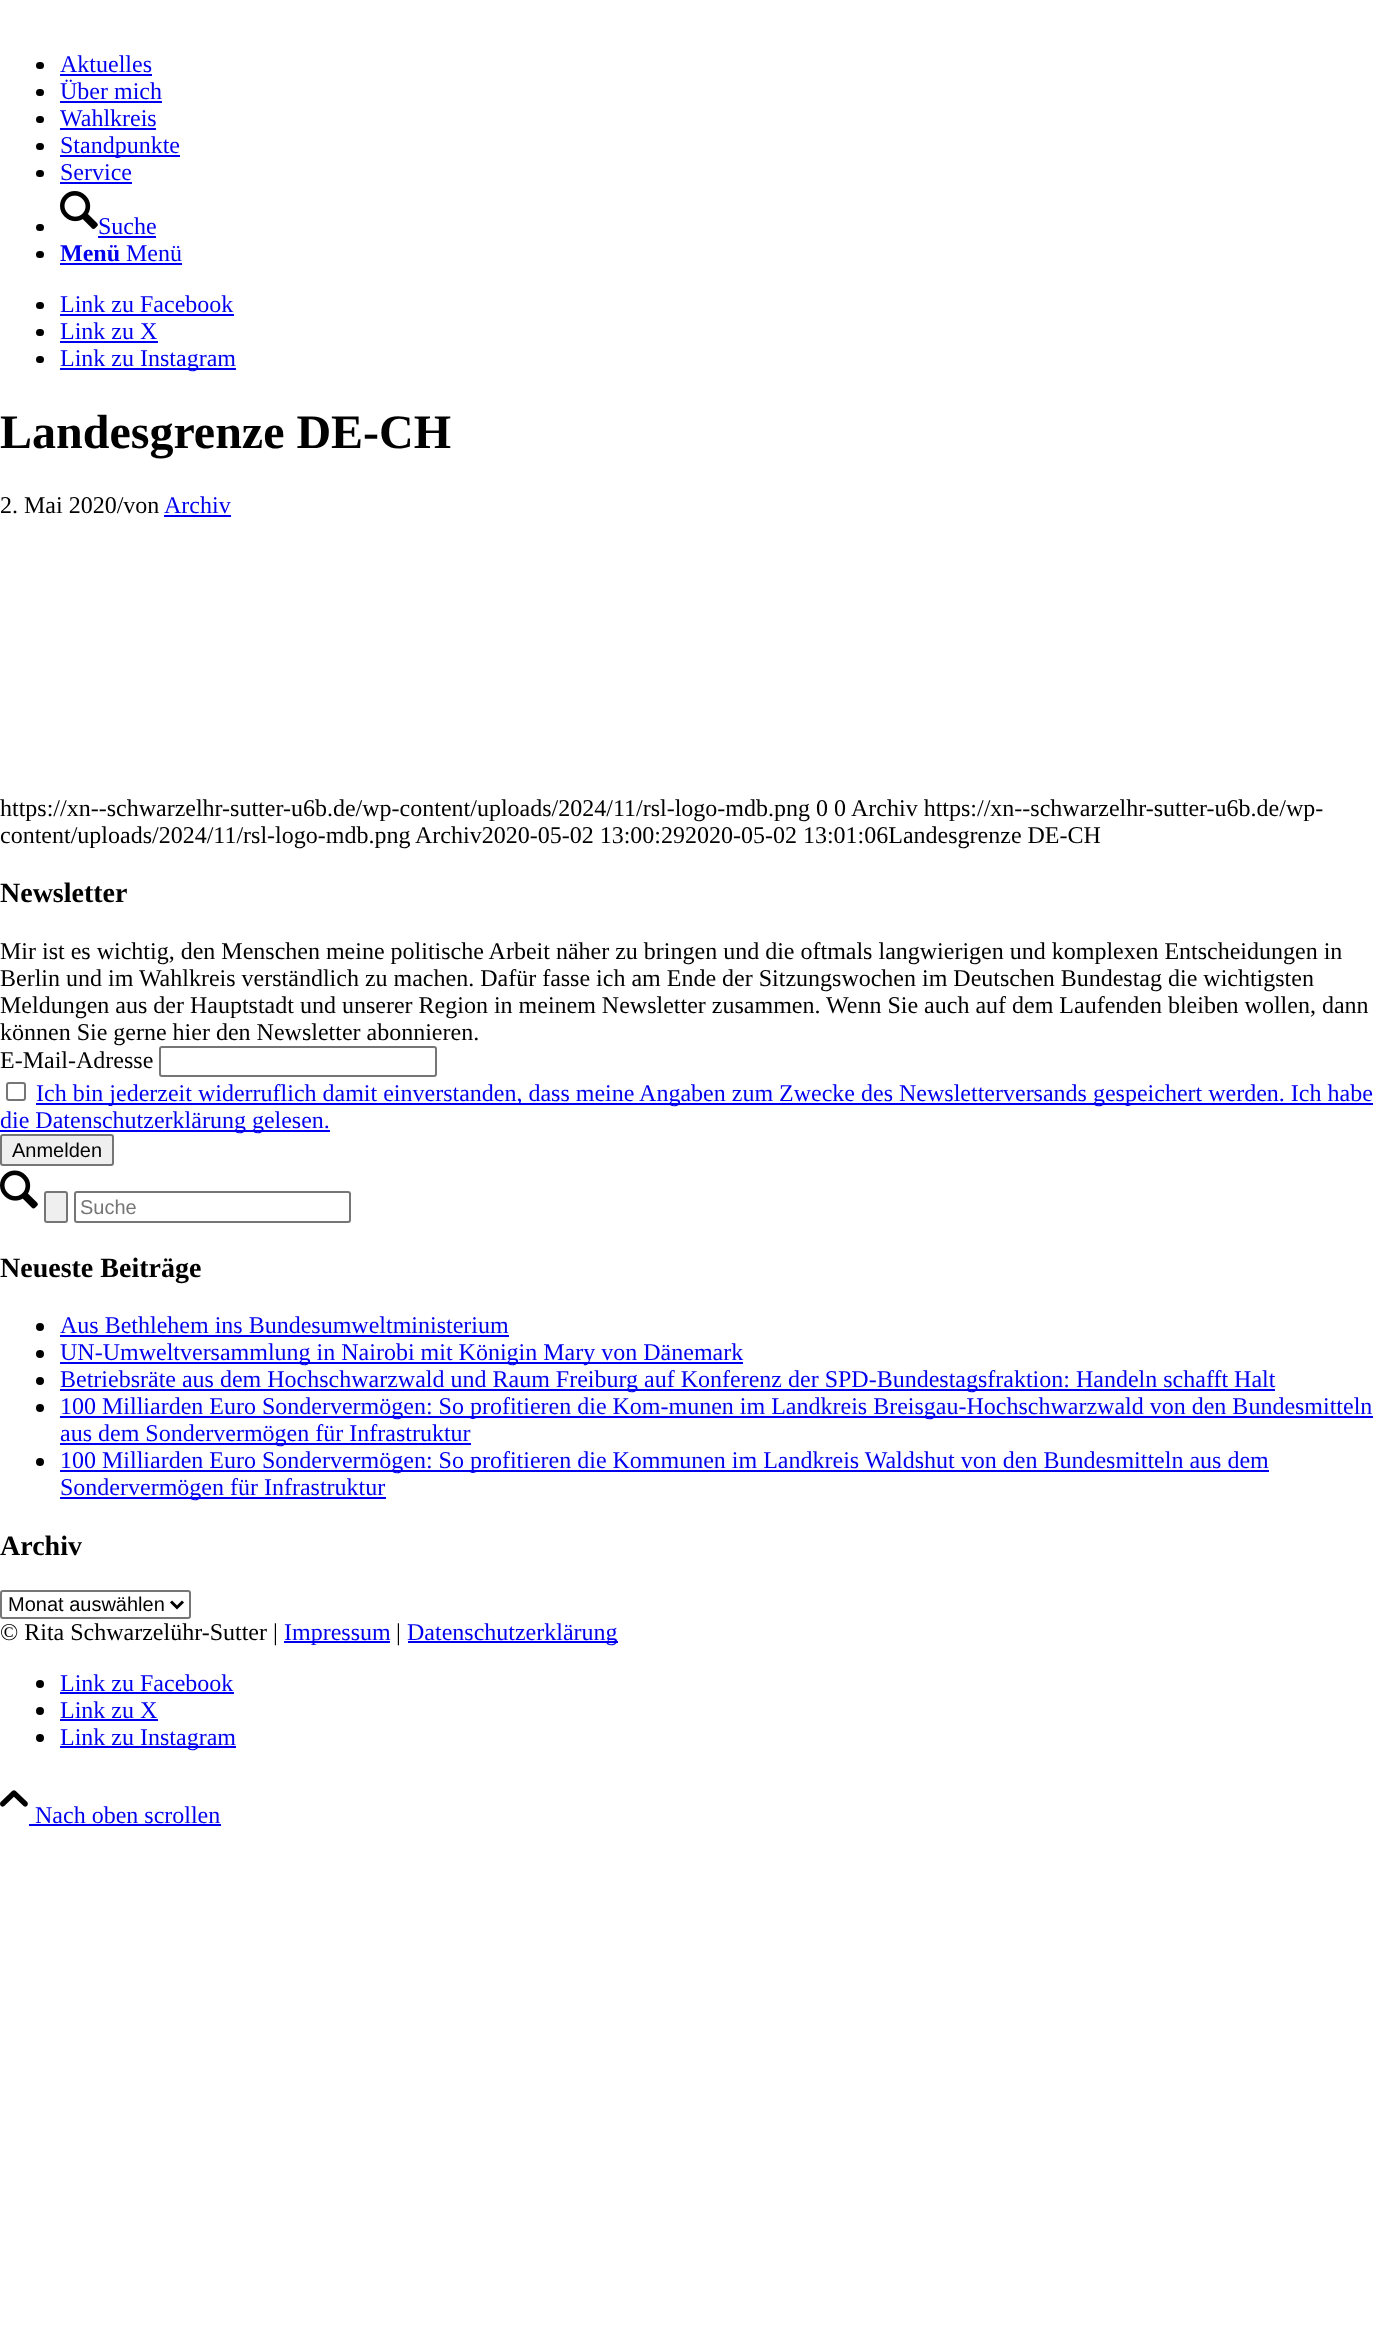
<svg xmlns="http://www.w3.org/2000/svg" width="1380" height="2332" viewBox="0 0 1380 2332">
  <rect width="100%" height="100%" fill="rgb(255,255,255)"/>
  <rect x="36" y="62" width="8" height="7" rx="3.5" fill="rgb(0,0,0)"/>
  <text x="60" y="72" font-family="Liberation Serif" font-size="24" fill="rgb(0,0,238)">Aktuelles</text>
  <rect x="60" y="74" width="92" height="2" fill="rgb(0,0,238)"/>
  <rect x="36" y="89" width="8" height="7" rx="3.5" fill="rgb(0,0,0)"/>
  <text x="60" y="99" font-family="Liberation Serif" font-size="24" fill="rgb(0,0,238)">Über mich</text>
  <rect x="60" y="101" width="102" height="2" fill="rgb(0,0,238)"/>
  <rect x="36" y="116" width="8" height="7" rx="3.5" fill="rgb(0,0,0)"/>
  <text x="60" y="126" font-family="Liberation Serif" font-size="24" fill="rgb(0,0,238)">Wahlkreis</text>
  <rect x="60" y="128" width="96" height="2" fill="rgb(0,0,238)"/>
  <rect x="36" y="143" width="8" height="7" rx="3.5" fill="rgb(0,0,0)"/>
  <rect x="60" y="155" width="120" height="2" fill="rgb(0,0,238)"/>
  <text x="60" y="153" font-family="Liberation Serif" font-size="24" fill="rgb(0,0,238)">Standpunkte</text>
  <rect x="36" y="170" width="8" height="7" rx="3.5" fill="rgb(0,0,0)"/>
  <text x="60" y="180" font-family="Liberation Serif" font-size="24" fill="rgb(0,0,238)">Service</text>
  <rect x="60" y="182" width="72" height="2" fill="rgb(0,0,238)"/>
  <rect x="36" y="224" width="8" height="7" rx="3.5" fill="rgb(0,0,0)"/>
  <image x="60" y="191" width="38" height="38" href="pic1.png"/>
  <text x="98" y="234" font-family="Liberation Serif" font-size="24" fill="rgb(0,0,238)">Suche</text>
  <rect x="98" y="236" width="58" height="2" fill="rgb(0,0,238)"/>
  <rect x="36" y="251" width="8" height="7" rx="3.5" fill="rgb(0,0,0)"/>
  <text x="60" y="261" font-family="Liberation Serif" font-size="24" font-weight="bold" fill="rgb(0,0,238)">Menü</text>
  <text x="126" y="261" font-family="Liberation Serif" font-size="24" fill="rgb(0,0,238)">Menü</text>
  <rect x="60" y="263" width="122" height="2" fill="rgb(0,0,238)"/>
  <rect x="36" y="302" width="8" height="7" rx="3.5" fill="rgb(0,0,0)"/>
  <text x="60" y="312" font-family="Liberation Serif" font-size="24" fill="rgb(0,0,238)">Link zu Facebook</text>
  <rect x="60" y="314" width="174" height="2" fill="rgb(0,0,238)"/>
  <rect x="36" y="329" width="8" height="7" rx="3.5" fill="rgb(0,0,0)"/>
  <text x="60" y="339" font-family="Liberation Serif" font-size="24" fill="rgb(0,0,238)">Link zu X</text>
  <rect x="60" y="341" width="98" height="2" fill="rgb(0,0,238)"/>
  <rect x="36" y="356" width="8" height="7" rx="3.5" fill="rgb(0,0,0)"/>
  <rect x="60" y="368" width="176" height="2" fill="rgb(0,0,238)"/>
  <text x="60" y="366" font-family="Liberation Serif" font-size="24" fill="rgb(0,0,238)">Link zu Instagram</text>
  <text x="0" y="448" font-family="Liberation Serif" font-size="48" font-weight="bold" fill="rgb(0,0,0)">Landesgrenze DE-CH</text>
  <text x="0" y="513" font-family="Liberation Serif" font-size="24" fill="rgb(0,0,0)">2. Mai 2020/von</text>
  <text x="164" y="513" font-family="Liberation Serif" font-size="24" fill="rgb(0,0,238)">Archiv</text>
  <rect x="164" y="515" width="67" height="2" fill="rgb(0,0,238)"/>
  <g font-family="Liberation Serif" font-size="24" fill="rgb(0,0,0)">
    <text x="0" y="816">https://xn--schwarzelhr-sutter-u6b.de/wp-content/uploads/2024/11/rsl-logo-mdb.png 0 0</text>
    <text x="851" y="816">Archiv https://xn--schwarzelhr-sutter-u6b.de/wp-</text>
    <text x="0" y="843">content/uploads/2024/11/rsl-logo-mdb.png</text>
    <text x="415" y="843">Archiv2020-05-02 13:00:292020-05-02 13:01:06Landesgrenze DE-CH</text>
  </g>
  <text x="0" y="902" font-family="Liberation Serif" font-size="28" font-weight="bold" fill="rgb(0,0,0)">Newsletter</text>
  <g font-family="Liberation Serif" font-size="24" fill="rgb(0,0,0)">
    <text>
      <tspan x="0" y="959">Mir ist es wichtig, den Menschen meine politische Arbeit näher zu bringen und die oftmals langwierigen und komplexen Entscheidungen in</tspan>
      <tspan x="0" y="986">Berlin und im Wahlkreis verständlich zu machen. Dafür fasse ich am Ende der Sitzungswochen im Deutschen Bundestag die wichtigsten</tspan>
      <tspan x="0" y="1013">Meldungen aus der Hauptstadt und unserer Region in meinem Newsletter zusammen. Wenn Sie auch auf dem Laufenden bleiben wollen, dann</tspan>
      <tspan x="0" y="1040">können Sie gerne hier den Newsletter abonnieren.</tspan>
      <tspan x="0" y="1068">E-Mail-Adresse</tspan>
    </text>
  </g>
  <rect x="160" y="1047" width="276" height="29" rx="2" fill="none" stroke="rgb(118,118,118)" stroke-width="2"/>
  <rect x="7" y="1083" width="18" height="17" rx="2" fill="none" stroke="rgb(118,118,118)" stroke-width="2"/>
  <rect x="36" y="1103" width="1337" height="2" fill="rgb(0,0,238)"/>
  <text x="36" y="1101" font-family="Liberation Serif" font-size="24" fill="rgb(0,0,238)">Ich bin jederzeit widerruflich damit einverstanden, dass meine Angaben zum Zwecke des Newsletterversands gespeichert werden. Ich habe</text>
  <rect x="0" y="1130" width="330" height="2" fill="rgb(0,0,238)"/>
  <text x="0" y="1128" font-family="Liberation Serif" font-size="24" fill="rgb(0,0,238)">die Datenschutzerklärung gelesen.</text>
  <rect x="1" y="1135" width="112" height="30" rx="2" fill="rgb(239,239,239)" stroke="rgb(118,118,118)" stroke-width="2"/>
  <text x="12" y="1157" font-family="Liberation Sans" font-size="20" fill="rgb(0,0,0)">Anmelden</text>
  <image x="0" y="1170" width="38" height="39" href="pic2.png"/>
  <rect x="45" y="1192" width="22" height="30" rx="2" fill="rgb(239,239,239)" stroke="rgb(118,118,118)" stroke-width="2"/>
  <rect x="75" y="1192" width="275" height="30" rx="2" fill="none" stroke="rgb(118,118,118)" stroke-width="2"/>
  <text x="80" y="1214" font-family="Liberation Sans" font-size="20" fill="rgb(117,117,117)">Suche</text>
  <text x="0" y="1277" font-family="Liberation Serif" font-size="28" font-weight="bold" fill="rgb(0,0,0)">Neueste Beiträge</text>
  <circle cx="40" cy="1327" r="4" fill="rgb(0,0,0)"/>
  <text x="60" y="1333" font-family="Liberation Serif" font-size="24" fill="rgb(0,0,238)">Aus Bethlehem ins Bundesumweltministerium</text>
  <rect x="60" y="1335" width="449" height="2" fill="rgb(0,0,238)"/>
  <circle cx="40" cy="1354" r="4" fill="rgb(0,0,0)"/>
  <rect x="60" y="1362" width="683" height="2" fill="rgb(0,0,238)"/>
  <text x="60" y="1360" font-family="Liberation Serif" font-size="24" fill="rgb(0,0,238)">UN-Umweltversammlung in Nairobi mit Königin Mary von Dänemark</text>
  <circle cx="40" cy="1381" r="4" fill="rgb(0,0,0)"/>
  <rect x="60" y="1389" width="1215" height="2" fill="rgb(0,0,238)"/>
  <text x="60" y="1387" font-family="Liberation Serif" font-size="24" fill="rgb(0,0,238)">Betriebsräte aus dem Hochschwarzwald und Raum Freiburg auf Konferenz der SPD-Bundestagsfraktion: Handeln schafft Halt</text>
  <circle cx="40" cy="1408" r="4" fill="rgb(0,0,0)"/>
  <rect x="60" y="1416" width="1313" height="2" fill="rgb(0,0,238)"/>
  <text x="60" y="1414" font-family="Liberation Serif" font-size="24" fill="rgb(0,0,238)">100 Milliarden Euro Sondervermögen: So profitieren die Kom-munen im Landkreis Breisgau-Hochschwarzwald von den Bundesmitteln</text>
  <rect x="60" y="1443" width="411" height="2" fill="rgb(0,0,238)"/>
  <text x="60" y="1441" font-family="Liberation Serif" font-size="24" fill="rgb(0,0,238)">aus dem Sondervermögen für Infrastruktur</text>
  <circle cx="40" cy="1462" r="4" fill="rgb(0,0,0)"/>
  <rect x="60" y="1470" width="1209" height="2" fill="rgb(0,0,238)"/>
  <text x="60" y="1468" font-family="Liberation Serif" font-size="24" fill="rgb(0,0,238)">100 Milliarden Euro Sondervermögen: So profitieren die Kommunen im Landkreis Waldshut von den Bundesmitteln aus dem</text>
  <rect x="60" y="1497" width="326" height="2" fill="rgb(0,0,238)"/>
  <text x="60" y="1495" font-family="Liberation Serif" font-size="24" fill="rgb(0,0,238)">Sondervermögen für Infrastruktur</text>
  <text x="0" y="1555" font-family="Liberation Serif" font-size="28" font-weight="bold" fill="rgb(0,0,0)">Archiv</text>
  <rect x="1" y="1591" width="189" height="27" rx="2" fill="none" stroke="rgb(118,118,118)" stroke-width="2"/>
  <path d="M171 1601.5L177 1607.5L183 1601.5" fill="none" stroke="rgb(0,0,0)" stroke-width="3"/>
  <text x="8" y="1611" font-family="Liberation Sans" font-size="20" fill="rgb(0,0,0)">Monat auswählen</text>
  <text x="0" y="1640" font-family="Liberation Serif" font-size="24" fill="rgb(0,0,0)">© Rita Schwarzelühr-Sutter |</text>
  <rect x="284" y="1641" width="106" height="2" fill="rgb(0,0,238)"/>
  <text x="284" y="1640" font-family="Liberation Serif" font-size="24" fill="rgb(0,0,238)">Impressum</text>
  <text x="396" y="1640" font-family="Liberation Serif" font-size="24" fill="rgb(0,0,0)">|</text>
  <rect x="408" y="1641" width="210" height="2" fill="rgb(0,0,238)"/>
  <text x="407" y="1640" font-family="Liberation Serif" font-size="24" fill="rgb(0,0,238)">Datenschutzerklärung</text>
  <circle cx="40" cy="1684" r="4" fill="rgb(0,0,0)"/>
  <text x="60" y="1691" font-family="Liberation Serif" font-size="24" fill="rgb(0,0,238)">Link zu Facebook</text>
  <rect x="60" y="1692" width="174" height="2" fill="rgb(0,0,238)"/>
  <circle cx="40" cy="1711" r="4" fill="rgb(0,0,0)"/>
  <text x="60" y="1718" font-family="Liberation Serif" font-size="24" fill="rgb(0,0,238)">Link zu X</text>
  <rect x="60" y="1719" width="98" height="2" fill="rgb(0,0,238)"/>
  <circle cx="40" cy="1738" r="4" fill="rgb(0,0,0)"/>
  <rect x="60" y="1746" width="176" height="2" fill="rgb(0,0,238)"/>
  <text x="60" y="1745" font-family="Liberation Serif" font-size="24" fill="rgb(0,0,238)">Link zu Instagram</text>
  <image x="0" y="1790" width="28" height="17" href="pic3.png"/>
  <text x="35" y="1823" font-family="Liberation Serif" font-size="24" fill="rgb(0,0,238)">Nach oben scrollen</text>
  <rect x="29" y="1824" width="192" height="2" fill="rgb(0,0,238)"/>
</svg>
